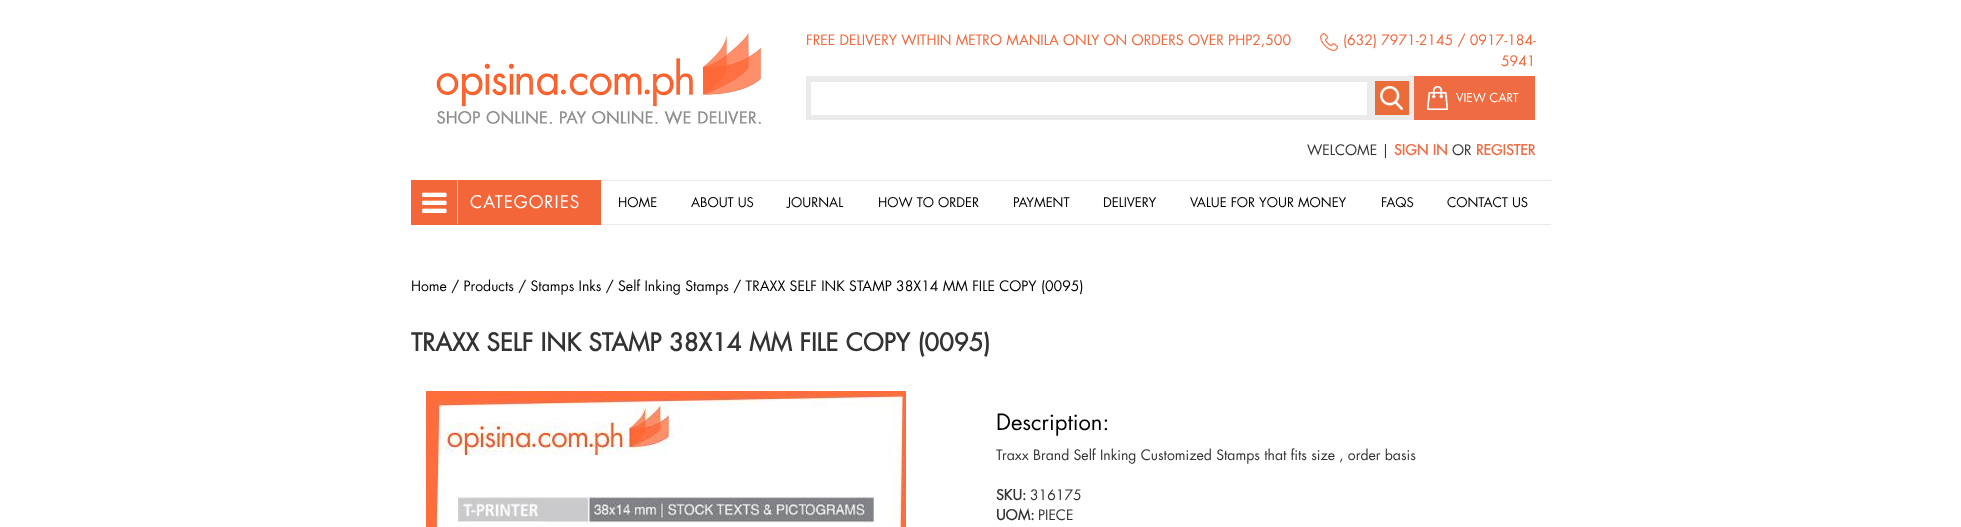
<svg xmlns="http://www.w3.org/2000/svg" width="1961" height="527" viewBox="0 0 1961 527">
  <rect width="100%" height="100%" fill="rgb(255,255,255)"/>
  <image x="436" y="33" width="325" height="92" href="pic1.png"/>
  <text x="806" y="45" font-family="Futura" font-size="14" fill="rgb(242,102,58)">FREE DELIVERY WITHIN METRO MANILA ONLY ON ORDERS OVER PHP2,500</text>
  <image x="1320" y="33" width="18" height="18" href="pic2.png"/>
  <g font-family="Futura" font-size="14" fill="rgb(242,102,58)">
    <text x="1343" y="45">(632) 7971-2145 / 0917-184-</text>
    <text x="1501" y="66">5941</text>
  </g>
  <rect x="806" y="76" width="608" height="44" fill="rgb(235,235,235)"/>
  <rect x="811" y="82" width="556" height="33" fill="rgb(255,255,255)"/>
  <rect x="1375" y="81" width="34" height="34" fill="rgb(233,108,57)"/>
  <image x="1380" y="86" width="23" height="24" href="pic3.png"/>
  <rect x="1414" y="76" width="121" height="44" fill="rgb(239,107,66)"/>
  <image x="1427" y="86" width="21" height="24" href="pic4.png"/>
  <text x="1456" y="102" font-family="Futura" font-size="12" fill="rgb(255,255,255)">VIEW CART</text>
  <text x="1307" y="155" font-family="Futura" font-size="14" fill="rgb(51,51,51)">WELCOME |</text>
  <text x="1394" y="155" font-family="Futura" font-size="14" font-weight="bold" fill="rgb(239,107,66)">SIGN IN</text>
  <text x="1452" y="155" font-family="Futura" font-size="14" fill="rgb(51,51,51)">OR</text>
  <text x="1476" y="155" font-family="Futura" font-size="14" font-weight="bold" fill="rgb(239,107,66)">REGISTER</text>
  <rect x="411" y="180" width="190" height="45" fill="rgb(242,102,58)"/>
  <image x="422" y="192" width="25" height="21" href="pic5.png"/>
  <rect x="457" y="180" width="1" height="44" fill="rgb(221,221,221)"/>
  <text x="470" y="208" font-family="Futura" font-size="17" letter-spacing="1" fill="rgb(255,255,255)">CATEGORIES</text>
  <rect x="601" y="180" width="950" height="1" fill="rgb(234,234,234)"/>
  <rect x="601" y="224" width="950" height="1" fill="rgb(234,234,234)"/>
  <g font-family="Futura" font-size="13" fill="rgb(0,0,0)">
    <text x="618" y="207">HOME</text>
    <text x="691" y="207">ABOUT US</text>
    <text x="787" y="207">JOURNAL</text>
    <text x="878" y="207">HOW TO ORDER</text>
    <text x="1013" y="207">PAYMENT</text>
    <text x="1103" y="207">DELIVERY</text>
    <text x="1190" y="207">VALUE FOR YOUR MONEY</text>
    <text x="1381" y="207">FAQS</text>
    <text x="1447" y="207">CONTACT US</text>
  </g>
  <text x="411" y="291" font-family="Futura" font-size="14" fill="rgb(0,0,0)">Home / Products / Stamps Inks / Self Inking Stamps / TRAXX SELF INK STAMP 38X14 MM FILE COPY (0095)</text>
  <text x="411" y="351" font-family="Futura" font-size="24" font-weight="bold" fill="rgb(51,51,51)">TRAXX SELF INK STAMP 38X14 MM FILE COPY (0095)</text>
  <image x="426" y="391" width="480" height="136" href="pic6.png"/>
  <text x="996" y="430" font-family="Futura" font-size="22" fill="rgb(0,0,0)">Description:</text>
  <text x="996" y="460" font-family="Futura" font-size="14" fill="rgb(51,51,51)">Traxx Brand Self Inking Customized Stamps that fits size , order basis</text>
  <text x="996" y="500" font-family="Futura" font-size="14" font-weight="bold" fill="rgb(51,51,51)">SKU:</text>
  <text x="1030" y="500" font-family="Futura" font-size="14" fill="rgb(51,51,51)">316175</text>
  <text x="996" y="520" font-family="Futura" font-size="14" font-weight="bold" fill="rgb(51,51,51)">UOM:</text>
  <text x="1038" y="520" font-family="Futura" font-size="14" fill="rgb(51,51,51)">PIECE</text>
</svg>
